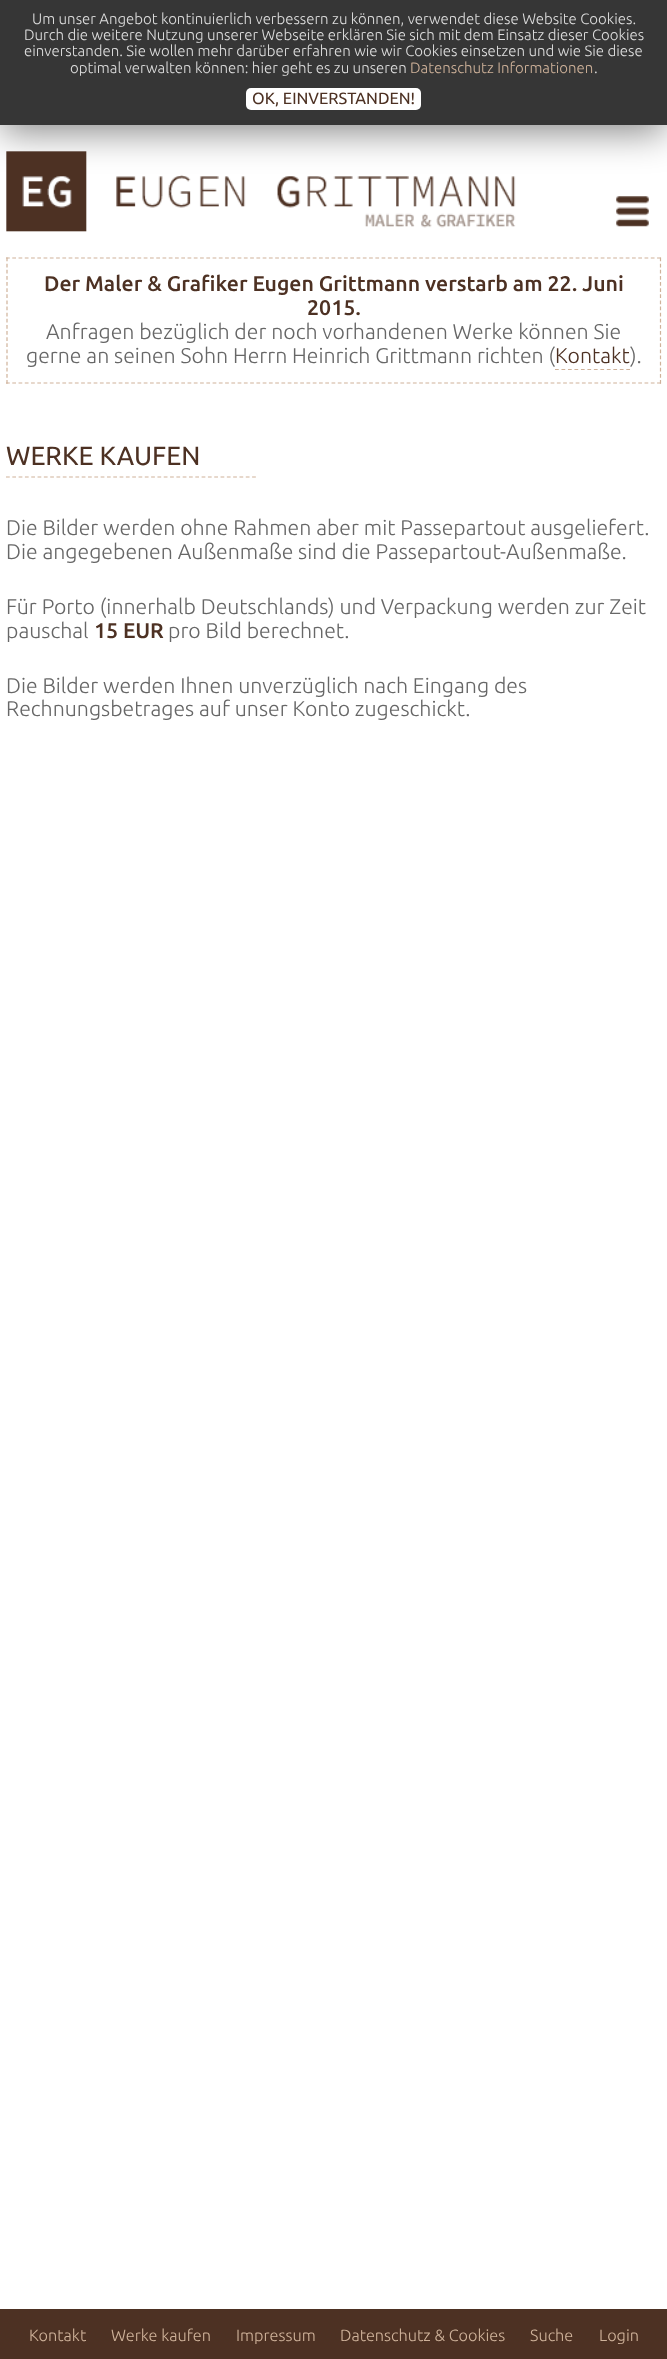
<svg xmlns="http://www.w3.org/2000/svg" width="667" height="2359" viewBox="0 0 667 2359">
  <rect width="100%" height="100%" fill="rgb(255,255,255)"/>
  <rect x="1" y="10" width="665" height="123" fill="rgba(0,0,0,0.45)" filter="blur(18px)"/>
  <rect x="0" y="0" width="667" height="125" fill="rgb(54,54,54)"/>
  <g font-family="Ubuntu" font-size="15" font-weight="300" fill="rgb(221,221,221)">
    <text x="32" y="24">Um unser Angebot kontinuierlich verbessern zu können, verwendet diese Website Cookies.</text>
    <text>
      <tspan x="24" y="40">Durch die weitere Nutzung unserer Webseite erklären Sie sich mit dem Einsatz dieser Cookies</tspan>
      <tspan x="24" y="56">einverstanden. Sie wollen mehr darüber erfahren wie wir Cookies einsetzen und wie Sie diese</tspan>
    </text>
    <text x="70" y="73">optimal verwalten können: hier geht es zu unseren</text>
  </g>
  <text x="410" y="73" font-family="Ubuntu" font-size="15" font-weight="300" fill="rgb(207,178,154)">Datenschutz Informationen</text>
  <text x="594" y="73" font-family="Ubuntu" font-size="15" font-weight="300" fill="rgb(221,221,221)">.</text>
  <rect x="246" y="88" width="175" height="22" rx="5" fill="rgb(255,255,255)"/>
  <text x="252" y="104" font-family="Ubuntu" font-size="16.25" fill="rgb(77,49,35)">OK, EINVERSTANDEN!</text>
  <image x="6" y="151" width="510" height="81" href="pic1.png"/>
  <image x="616" y="196" width="33" height="31" href="pic2.png"/>
  <path d="M6 258H661" fill="none" stroke="rgb(207,178,154)" stroke-width="1.2" stroke-dasharray="3.75 2.51"/>
  <path d="M660.5 257.5V384" fill="none" stroke="rgb(207,178,154)" stroke-width="1.2" stroke-dasharray="3.75 2.38"/>
  <path d="M6 383H661" fill="none" stroke="rgb(207,178,154)" stroke-width="1.2" stroke-dasharray="3.75 2.51"/>
  <path d="M7 257.5V384" fill="none" stroke="rgb(207,178,154)" stroke-width="1.2" stroke-dasharray="3.75 2.38"/>
  <g font-family="Ubuntu" font-size="21.25" font-weight="500" fill="rgb(77,49,35)">
    <text x="44" y="291">Der Maler &amp; Grafiker Eugen Grittmann verstarb am 22. Juni</text>
    <text x="307" y="315">2015.</text>
  </g>
  <g font-family="Ubuntu" font-size="21.25" font-weight="300" fill="rgb(103,103,103)">
    <text x="46" y="339">Anfragen bezüglich der noch vorhandenen Werke können Sie</text>
    <text x="26" y="363">gerne an seinen Sohn Herrn Heinrich Grittmann richten (</text>
  </g>
  <path d="M555 369.5H630" fill="none" stroke="rgb(207,178,154)" stroke-width="1.2" stroke-dasharray="3.75 2.73"/>
  <text x="555" y="363" font-family="Ubuntu" font-size="21.25" font-weight="300" fill="rgb(77,49,35)">Kontakt</text>
  <text x="630" y="363" font-family="Ubuntu" font-size="21.25" font-weight="300" fill="rgb(103,103,103)">).</text>
  <path d="M6 477H256" fill="none" stroke="rgb(207,178,154)" stroke-width="1.2" stroke-dasharray="3.75 2.56"/>
  <text x="6" y="465" font-family="Ubuntu" font-size="26.25" fill="rgb(77,49,35)">WERKE KAUFEN</text>
  <g font-family="Ubuntu" font-size="21.25" font-weight="300" fill="rgb(103,103,103)">
    <text>
      <tspan x="6" y="535">Die Bilder werden ohne Rahmen aber mit Passepartout ausgeliefert.</tspan>
      <tspan x="6" y="559">Die angegebenen Außenmaße sind die Passepartout-Außenmaße.</tspan>
    </text>
    <text>
      <tspan x="6" y="614">Für Porto (innerhalb Deutschlands) und Verpackung werden zur Zeit</tspan>
      <tspan x="6" y="638">pauschal</tspan>
    </text>
  </g>
  <text x="94" y="638" font-family="Ubuntu" font-size="21.25" font-weight="500" fill="rgb(77,49,35)">15 EUR</text>
  <g font-family="Ubuntu" font-size="21.25" font-weight="300" fill="rgb(103,103,103)">
    <text x="168" y="638">pro Bild berechnet.</text>
    <text>
      <tspan x="6" y="693">Die Bilder werden Ihnen unverzüglich nach Eingang des</tspan>
      <tspan x="6" y="716">Rechnungsbetrages auf unser Konto zugeschickt.</tspan>
    </text>
  </g>
  <rect x="0" y="2309" width="667" height="50" fill="rgb(77,49,35)"/>
  <g font-family="Ubuntu" font-size="16.25" font-weight="300" fill="rgb(207,178,154)">
    <text x="29" y="2341">Kontakt</text>
    <text x="111" y="2341">Werke kaufen</text>
    <text x="236" y="2341">Impressum</text>
    <text x="340" y="2341">Datenschutz &amp; Cookies</text>
    <text x="530" y="2341">Suche</text>
    <text x="599" y="2341">Login</text>
  </g>
</svg>
